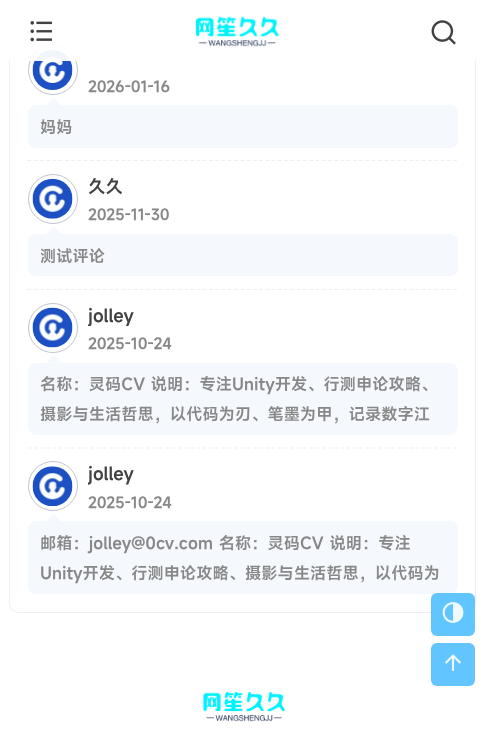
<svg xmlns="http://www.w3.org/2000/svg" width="484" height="742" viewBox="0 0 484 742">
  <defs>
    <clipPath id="clip1"><rect x="88" y="303" width="83" height="23"/></clipPath>
    <clipPath id="clip2"><rect x="88" y="461" width="83" height="24"/></clipPath>
  </defs>
  <rect width="100%" height="100%" fill="rgb(255,255,255)"/>
  <rect x="9.5" y="-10.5" width="466" height="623" rx="9.5" fill="none" stroke="rgb(235,238,245)"/>
  <path d="M27.5 32H457.5" fill="none" stroke="rgb(235,238,245)" stroke-width="1.2" stroke-dasharray="3.75 2.51"/>
  <rect x="28" y="-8" width="430" height="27" rx="8" fill="rgb(245,248,253)"/>
  <circle cx="53" cy="70" r="24.5" fill="none" stroke="rgb(192,196,204)"/>
  <image x="32" y="50" width="41" height="40" href="pic4.png"/>
  <rect x="9" y="0" width="467" height="61" fill="rgba(255,255,255,0.94)"/>
  <image x="30" y="21" width="22" height="21" href="pic1.png"/>
  <image x="195" y="16" width="84" height="31" href="pic2.png"/>
  <image x="431" y="20" width="25" height="25" href="pic3.png"/>
  <path d="M27.5 160.5H457.5" fill="none" stroke="rgb(235,238,245)" stroke-width="1.2" stroke-dasharray="3.75 2.51"/>
  <text x="88" y="92" font-family="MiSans" font-size="15" font-weight="600" fill="rgb(136,136,136)">2026-01-16</text>
  <rect x="28" y="105" width="430" height="43" rx="8" fill="rgb(245,248,253)"/>
  <path d="M61 105H46L54 97.5Z" fill="rgb(245,248,253)"/>
  <text x="40" y="133" font-family="MiSans" font-size="16.25" font-weight="600" fill="rgb(136,136,136)">妈妈</text>
  <path d="M27.5 289.5H457.5" fill="none" stroke="rgb(235,238,245)" stroke-width="1.2" stroke-dasharray="3.75 2.51"/>
  <circle cx="53" cy="199" r="24.5" fill="none" stroke="rgb(192,196,204)"/>
  <image x="32" y="178" width="41" height="41" href="pic5.png"/>
  <text x="88" y="193" font-family="MiSans" font-size="17.5" font-weight="600" fill="rgb(66,66,66)">久久</text>
  <text x="88" y="220" font-family="MiSans" font-size="15" font-weight="600" fill="rgb(136,136,136)">2025-11-30</text>
  <rect x="28" y="234" width="430" height="42" rx="8" fill="rgb(245,248,253)"/>
  <path d="M61 234H46L54 226Z" fill="rgb(245,248,253)"/>
  <text x="40" y="262" font-family="MiSans" font-size="16.25" font-weight="600" fill="rgb(136,136,136)">测试评论</text>
  <path d="M27.5 448H457.5" fill="none" stroke="rgb(235,238,245)" stroke-width="1.2" stroke-dasharray="3.75 2.51"/>
  <circle cx="53" cy="328" r="24.5" fill="none" stroke="rgb(192,196,204)"/>
  <image x="32" y="307" width="41" height="41" href="pic6.png"/>
  <g clip-path="url(#clip1)">
    <text x="88" y="322" font-family="MiSans" font-size="17.5" font-weight="600" fill="rgb(66,66,66)">jolley</text>
  </g>
  <text x="88" y="349" font-family="MiSans" font-size="15" font-weight="600" fill="rgb(136,136,136)">2025-10-24</text>
  <rect x="28" y="363" width="430" height="72" rx="8" fill="rgb(245,248,253)"/>
  <path d="M61 362.5H46L54 355Z" fill="rgb(245,248,253)"/>
  <g font-family="MiSans" font-size="16.25" font-weight="600" fill="rgb(136,136,136)">
    <text>
      <tspan x="40" y="390">名称：灵码CV 说明：专注Unity开发、行测申论攻略、</tspan>
      <tspan x="40" y="420">摄影与生活哲思，以代码为刃、笔墨为甲，记录数字江</tspan>
    </text>
  </g>
  <circle cx="53" cy="486" r="24.5" fill="none" stroke="rgb(192,196,204)"/>
  <image x="32" y="466" width="41" height="41" href="pic7.png"/>
  <g clip-path="url(#clip2)">
    <text x="88" y="480" font-family="MiSans" font-size="17.5" font-weight="600" fill="rgb(66,66,66)">jolley</text>
  </g>
  <text x="88" y="508" font-family="MiSans" font-size="15" font-weight="600" fill="rgb(136,136,136)">2025-10-24</text>
  <rect x="28" y="521" width="430" height="73" rx="8" fill="rgb(245,248,253)"/>
  <path d="M61 521H46L54 514Z" fill="rgb(245,248,253)"/>
  <g font-family="MiSans" font-size="16.25" font-weight="600" fill="rgb(136,136,136)">
    <text>
      <tspan x="40" y="549">邮箱：jolley@0cv.com 名称：灵码CV 说明：专注</tspan>
      <tspan x="40" y="579">Unity开发、行测申论攻略、摄影与生活哲思，以代码为</tspan>
    </text>
  </g>
  <rect x="431" y="593" width="44" height="43" rx="6" fill="rgba(80,191,255,0.9)"/>
  <image x="442" y="602" width="22" height="21" href="pic8.png"/>
  <rect x="431" y="643" width="44" height="43" rx="6" fill="rgb(98,197,255)"/>
  <image x="445" y="654" width="16" height="17" href="pic9.png"/>
  <image x="202" y="692" width="83" height="30" href="pic10.png"/>
</svg>
